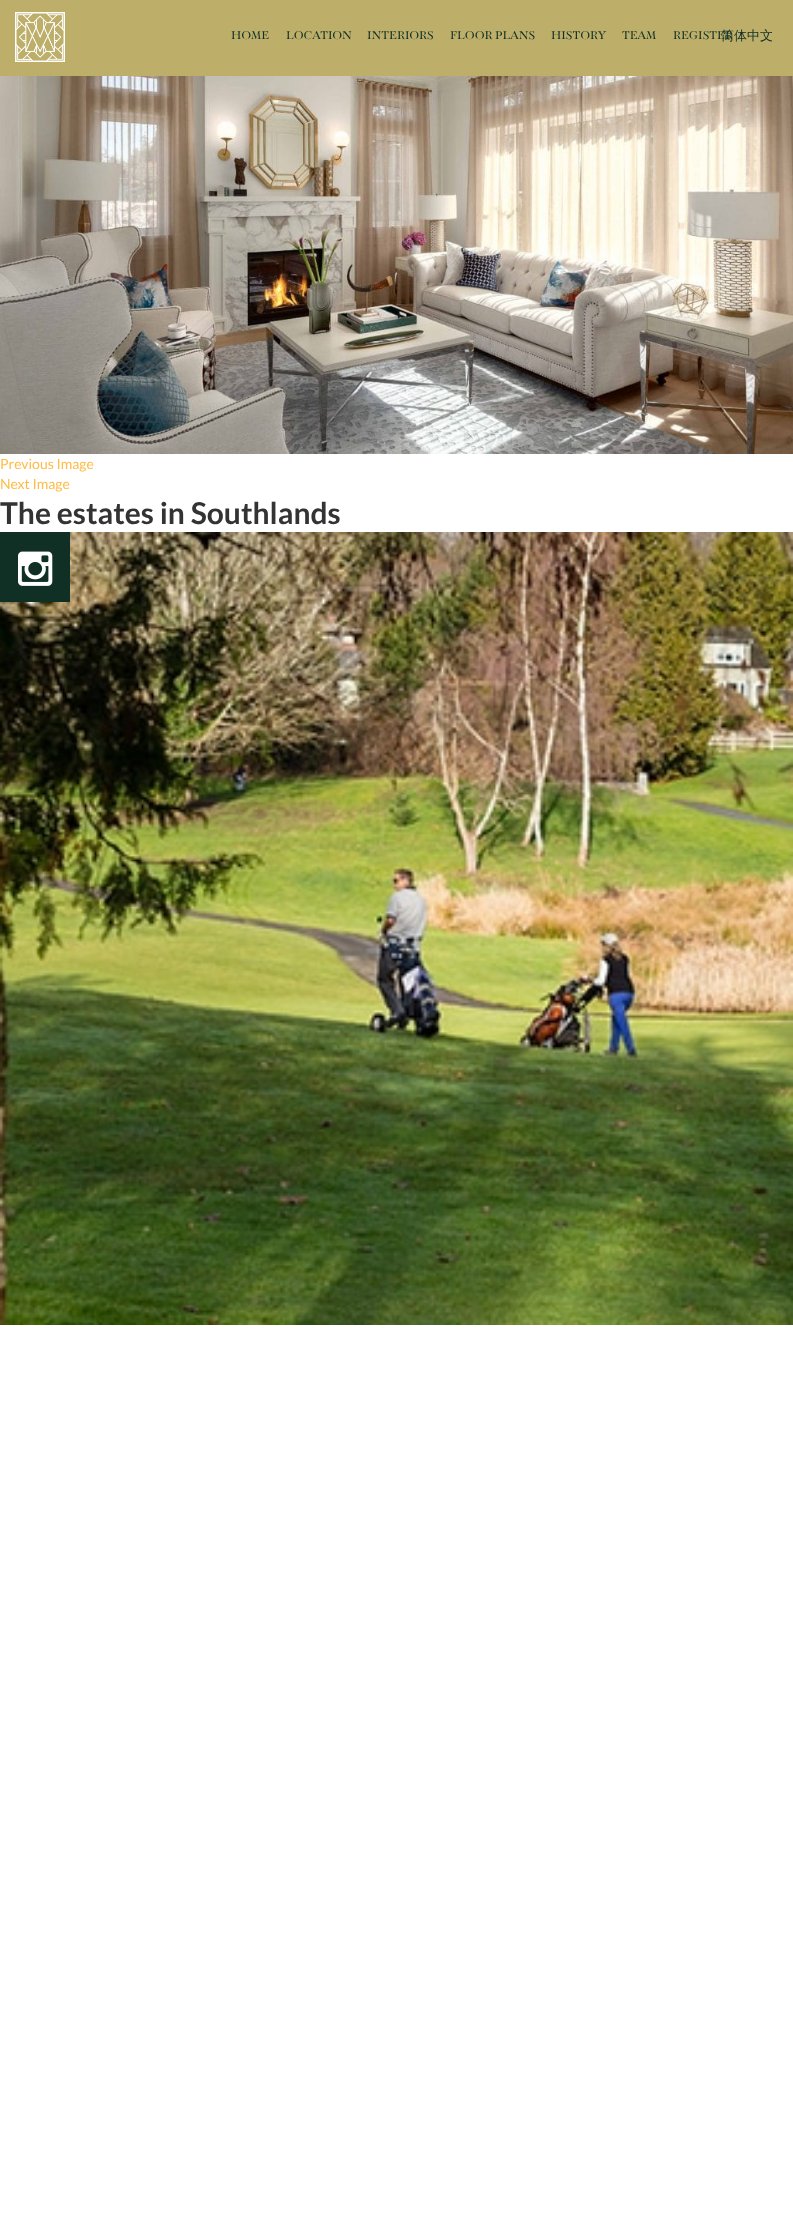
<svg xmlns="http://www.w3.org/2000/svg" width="793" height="2222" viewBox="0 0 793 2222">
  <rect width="100%" height="100%" fill="rgb(255,255,255)"/>
  <rect x="0" y="0" width="793" height="76" fill="rgb(189,174,106)"/>
  <image x="15" y="12" width="50" height="50" href="pic1.png"/>
  <g font-family="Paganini" font-size="11" fill="rgb(16,48,37)">
    <text x="231" y="39">HOME</text>
    <text x="286" y="39">LOCATION</text>
    <text x="367" y="39">INTERIORS</text>
    <text x="450" y="39">FLOOR PLANS</text>
    <text x="551" y="39">HISTORY</text>
    <text x="622" y="39">TEAM</text>
    <text x="673" y="39">REGISTER</text>
  </g>
  <text x="721" y="40" font-family="WenQuanYi Zen Hei" font-size="13" font-weight="500" fill="rgb(16,48,37)">简体中文</text>
  <image x="0" y="76" width="793" height="378" href="pic2.png"/>
  <g font-family="Lato" font-size="14" fill="rgb(255,187,68)">
    <text>
      <tspan x="0" y="469">Previous Image</tspan>
      <tspan x="0" y="489">Next Image</tspan>
    </text>
  </g>
  <text x="0" y="524" font-family="Lato" font-size="30" font-weight="bold" fill="rgb(51,51,51)">The estates in Southlands</text>
  <image x="0" y="532" width="793" height="793" href="pic3.png"/>
  <rect x="0" y="532" width="70" height="70" fill="rgb(16,48,37)"/>
  <image x="18" y="551" width="35" height="35" href="pic4.png"/>
</svg>
